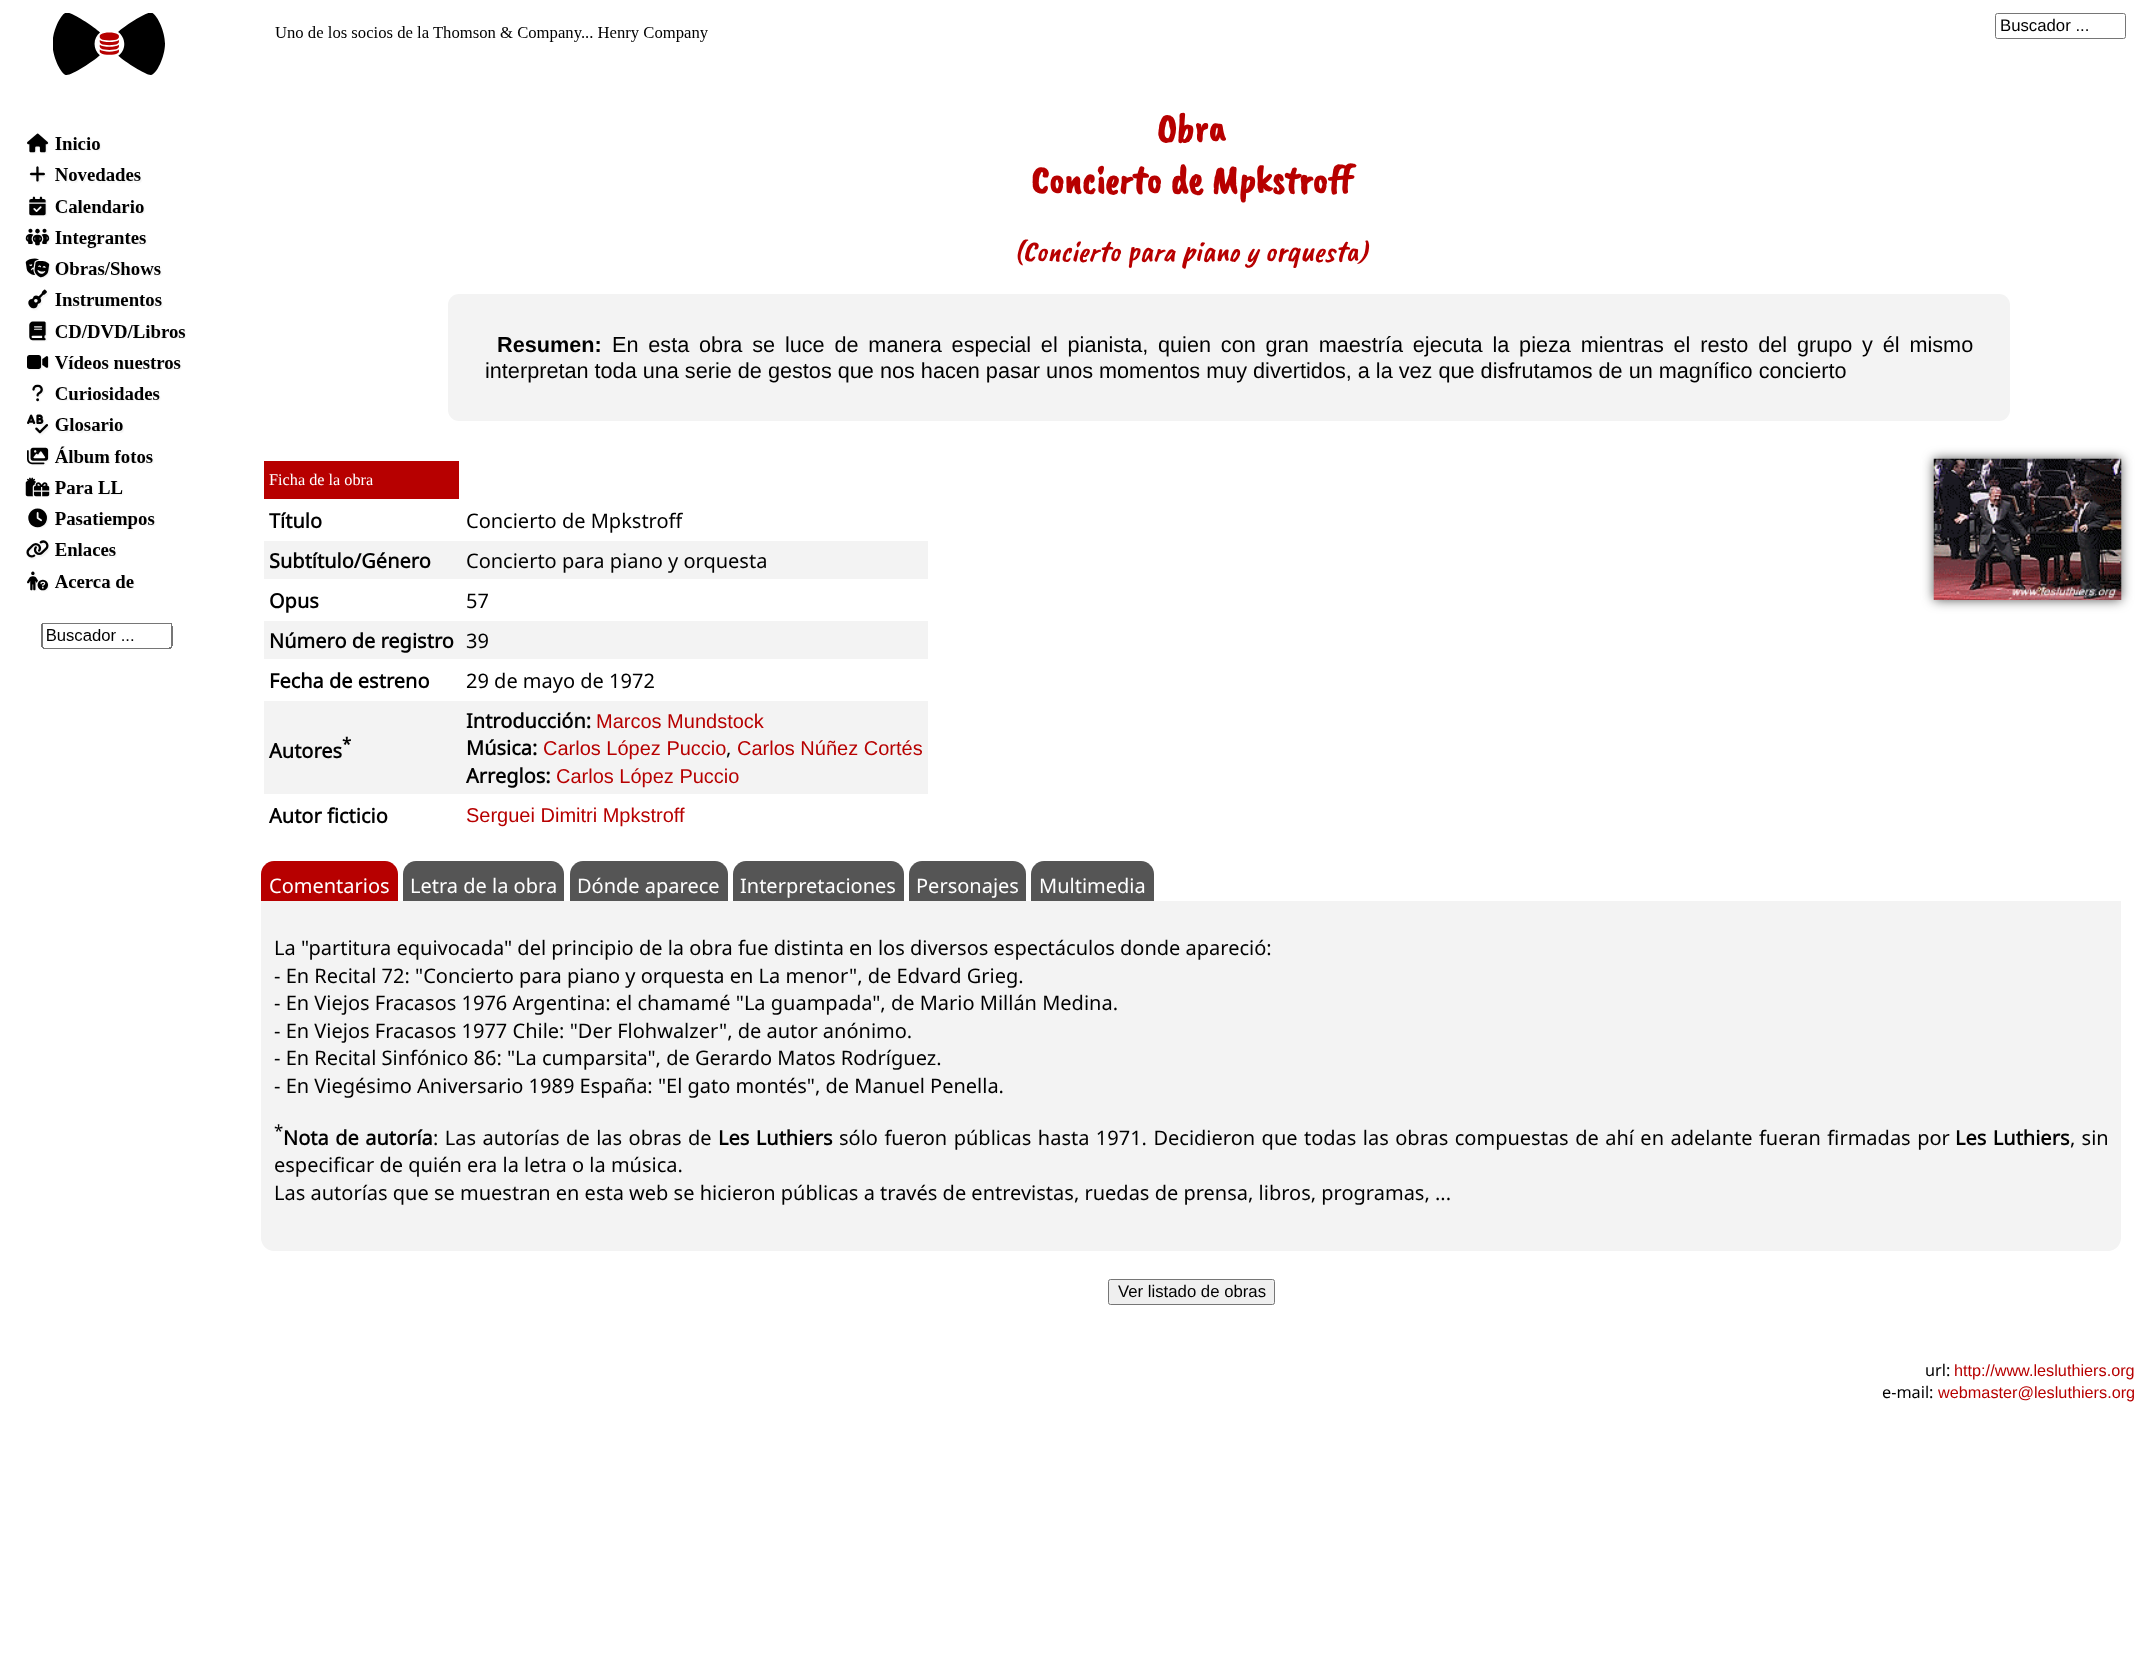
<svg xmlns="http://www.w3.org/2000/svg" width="2138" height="1680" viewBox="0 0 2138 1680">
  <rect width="100%" height="100%" fill="rgb(255,255,255)"/>
  <image x="53" y="13" width="112" height="62" href="pic1.png"/>
  <image x="275" y="26" width="433" height="16" href="pic2.png"/>
  <rect x="1995.5" y="13.5" width="130" height="25" rx="2" fill="none" stroke="rgb(118,118,118)"/>
  <text x="2000" y="31" font-family="Liberation Sans" font-size="16.75" fill="rgb(0,0,0)">Buscador ...</text>
  <image x="25" y="133" width="161" height="516" href="pic3.png"/>
  <g font-family="Caveat Brush" font-size="40" font-weight="bold" fill="rgb(183,0,0)">
    <text x="1157" y="141">Obra</text>
    <text x="1031" y="193">Concierto de Mpkstroff</text>
  </g>
  <text x="1014" y="261" font-family="Caveat Brush" font-size="30" font-style="italic" fill="rgb(183,0,0)">(Concierto para piano y orquesta)</text>
  <rect x="448" y="294" width="1562" height="127" rx="11" fill="rgb(243,243,243)"/>
  <text x="497" y="352" font-family="Liberation Sans" font-size="21.67" font-weight="bold" fill="rgb(0,0,0)">Resumen:</text>
  <g font-family="Liberation Sans" font-size="21.67" fill="rgb(0,0,0)">
    <text x="612" y="352" word-spacing="3.8">En esta obra se luce de manera especial el pianista, quien con gran maestría ejecuta la pieza mientras el resto del grupo y él mismo</text>
    <text x="485" y="378">interpretan toda una serie de gestos que nos hacen pasar unos momentos muy divertidos, a la vez que disfrutamos de un magnífico concierto</text>
  </g>
  <rect x="264" y="461" width="195" height="38" fill="rgb(183,0,0)"/>
  <text x="269" y="485" font-family="Liberation Serif" font-size="16.25" fill="rgb(255,255,255)">Ficha de la obra</text>
  <text x="269" y="528" font-family="Noto Sans" font-size="20" font-weight="bold" fill="rgb(0,0,0)">Título</text>
  <text x="466" y="528" font-family="Noto Sans" font-size="20" fill="rgb(0,0,0)">Concierto de Mpkstroff</text>
  <rect x="264" y="541" width="664" height="38" fill="rgb(243,243,243)"/>
  <text x="269" y="568" font-family="Noto Sans" font-size="20" font-weight="bold" fill="rgb(0,0,0)">Subtítulo/Género</text>
  <text x="466" y="568" font-family="Noto Sans" font-size="20" fill="rgb(0,0,0)">Concierto para piano y orquesta</text>
  <text x="269" y="608" font-family="Noto Sans" font-size="20" font-weight="bold" fill="rgb(0,0,0)">Opus</text>
  <text x="466" y="608" font-family="Noto Sans" font-size="20" fill="rgb(0,0,0)">57</text>
  <rect x="264" y="621" width="664" height="38" fill="rgb(243,243,243)"/>
  <text x="269" y="648" font-family="Noto Sans" font-size="20" font-weight="bold" fill="rgb(0,0,0)">Número de registro</text>
  <text x="466" y="648" font-family="Noto Sans" font-size="20" fill="rgb(0,0,0)">39</text>
  <text x="269" y="688" font-family="Noto Sans" font-size="20" font-weight="bold" fill="rgb(0,0,0)">Fecha de estreno</text>
  <text x="466" y="688" font-family="Noto Sans" font-size="20" fill="rgb(0,0,0)">29 de mayo de 1972</text>
  <rect x="264" y="701" width="664" height="93" fill="rgb(243,243,243)"/>
  <text x="342" y="750" font-family="Noto Sans" font-size="16.75" font-weight="bold" fill="rgb(0,0,0)">*</text>
  <g font-family="Noto Sans" font-size="20" font-weight="bold" fill="rgb(0,0,0)">
    <text x="269" y="758">Autores</text>
    <text x="466" y="728">Introducción:</text>
  </g>
  <text x="596" y="728" font-family="Liberation Sans" font-size="20" fill="rgb(183,0,0)">Marcos Mundstock</text>
  <text x="466" y="755" font-family="Noto Sans" font-size="20" font-weight="bold" fill="rgb(0,0,0)">Música:</text>
  <text x="543" y="755" font-family="Liberation Sans" font-size="20" fill="rgb(183,0,0)">Carlos López Puccio</text>
  <text x="726" y="755" font-family="Noto Sans" font-size="20" fill="rgb(0,0,0)">,</text>
  <text x="737" y="755" font-family="Liberation Sans" font-size="20" fill="rgb(183,0,0)">Carlos Núñez Cortés</text>
  <text x="466" y="783" font-family="Noto Sans" font-size="20" font-weight="bold" fill="rgb(0,0,0)">Arreglos:</text>
  <text x="556" y="783" font-family="Liberation Sans" font-size="20" fill="rgb(183,0,0)">Carlos López Puccio</text>
  <text x="269" y="823" font-family="Noto Sans" font-size="20" font-weight="bold" fill="rgb(0,0,0)">Autor ficticio</text>
  <text x="466" y="822" font-family="Liberation Sans" font-size="20" fill="rgb(183,0,0)">Serguei Dimitri Mpkstroff</text>
  <rect x="1934" y="459" width="187" height="141" fill="rgb(85,85,85)" filter="blur(6px)"/>
  <image x="1933" y="458" width="189" height="142" href="pic4.png"/>
  <path d="M274 861H385C392 861 398 867 398 874V901H261V874C261 867 267 861 274 861Z" fill="rgb(183,0,0)"/>
  <text x="269" y="893" font-family="Noto Sans" font-size="20" fill="rgb(255,255,255)">Comentarios</text>
  <path d="M416 861H551C558 861 564 867 564 874V901H403V874C403 867 409 861 416 861Z" fill="rgb(85,85,85)"/>
  <text x="410" y="893" font-family="Noto Sans" font-size="20" fill="rgb(255,255,255)">Letra de la obra</text>
  <path d="M583 861H715C722 861 728 867 728 874V901H570V874C570 867 576 861 583 861Z" fill="rgb(85,85,85)"/>
  <text x="577" y="893" font-family="Noto Sans" font-size="20" fill="rgb(255,255,255)">Dónde aparece</text>
  <path d="M746 861H891C898 861 904 867 904 874V901H733V874C733 867 739 861 746 861Z" fill="rgb(85,85,85)"/>
  <text x="740" y="893" font-family="Noto Sans" font-size="20" fill="rgb(255,255,255)">Interpretaciones</text>
  <path d="M922 861H1013C1020 861 1026 867 1026 874V901H909V874C909 867 915 861 922 861Z" fill="rgb(85,85,85)"/>
  <text x="916" y="893" font-family="Noto Sans" font-size="20" fill="rgb(255,255,255)">Personajes</text>
  <path d="M1044 861H1141C1148 861 1154 867 1154 874V901H1031V874C1031 867 1037 861 1044 861Z" fill="rgb(85,85,85)"/>
  <text x="1039" y="893" font-family="Noto Sans" font-size="20" fill="rgb(255,255,255)">Multimedia</text>
  <path d="M261 901H2121V1238C2121 1245 2115 1251 2108 1251H274C267 1251 261 1245 261 1238Z" fill="rgb(243,243,243)"/>
  <g font-family="Noto Sans" font-size="20" fill="rgb(0,0,0)">
    <text>
      <tspan x="274" y="955">La "partitura equivocada" del principio de la obra fue distinta en los diversos espectáculos donde apareció:</tspan>
      <tspan x="274" y="983">- En Recital 72: "Concierto para piano y orquesta en La menor", de Edvard Grieg.</tspan>
      <tspan x="274" y="1010">- En Viejos Fracasos 1976 Argentina: el chamamé "La guampada", de Mario Millán Medina.</tspan>
      <tspan x="274" y="1038">- En Viejos Fracasos 1977 Chile: "Der Flohwalzer", de autor anónimo.</tspan>
      <tspan x="274" y="1065">- En Recital Sinfónico 86: "La cumparsita", de Gerardo Matos Rodríguez.</tspan>
      <tspan x="274" y="1093">- En Viegésimo Aniversario 1989 España: "El gato montés", de Manuel Penella.</tspan>
    </text>
  </g>
  <text x="274" y="1137" font-family="Noto Sans" font-size="16.75" fill="rgb(0,0,0)">*</text>
  <text x="283" y="1145" word-spacing="1.25" font-family="Noto Sans" font-size="20" font-weight="bold" fill="rgb(0,0,0)">Nota de autoría</text>
  <text x="433" y="1145" word-spacing="1.25" font-family="Noto Sans" font-size="20" fill="rgb(0,0,0)">: Las autorías de las obras de</text>
  <text x="718" y="1145" word-spacing="1.25" font-family="Noto Sans" font-size="20" font-weight="bold" fill="rgb(0,0,0)">Les Luthiers</text>
  <text x="839" y="1145" word-spacing="1.25" font-family="Noto Sans" font-size="20" fill="rgb(0,0,0)">sólo fueron públicas hasta 1971. Decidieron que todas las obras compuestas de ahí en adelante fueran firmadas por</text>
  <text x="1955" y="1145" word-spacing="1.25" font-family="Noto Sans" font-size="20" font-weight="bold" fill="rgb(0,0,0)">Les Luthiers</text>
  <g font-family="Noto Sans" font-size="20" fill="rgb(0,0,0)">
    <text x="2070" y="1145" word-spacing="1">, sin</text>
    <text>
      <tspan x="274" y="1172">especificar de quién era la letra o la música.</tspan>
      <tspan x="274" y="1200">Las autorías que se muestran en esta web se hicieron públicas a través de entrevistas, ruedas de prensa, libros, programas, ...</tspan>
    </text>
  </g>
  <rect x="1108.5" y="1279.5" width="166" height="25" rx="2" fill="rgb(239,239,239)" stroke="rgb(118,118,118)"/>
  <text x="1118" y="1297" font-family="Liberation Sans" font-size="16.75" fill="rgb(0,0,0)">Ver listado de obras</text>
  <text x="1925" y="1376" font-family="Noto Sans" font-size="16.25" fill="rgb(0,0,0)">url:</text>
  <text x="1954" y="1376" font-family="Liberation Sans" font-size="16.25" fill="rgb(183,0,0)">http://www.lesluthiers.org</text>
  <text x="1882" y="1398" font-family="Noto Sans" font-size="16.25" fill="rgb(0,0,0)">e-mail:</text>
  <text x="1938" y="1398" font-family="Liberation Sans" font-size="16.25" fill="rgb(183,0,0)">webmaster@lesluthiers.org</text>
</svg>
